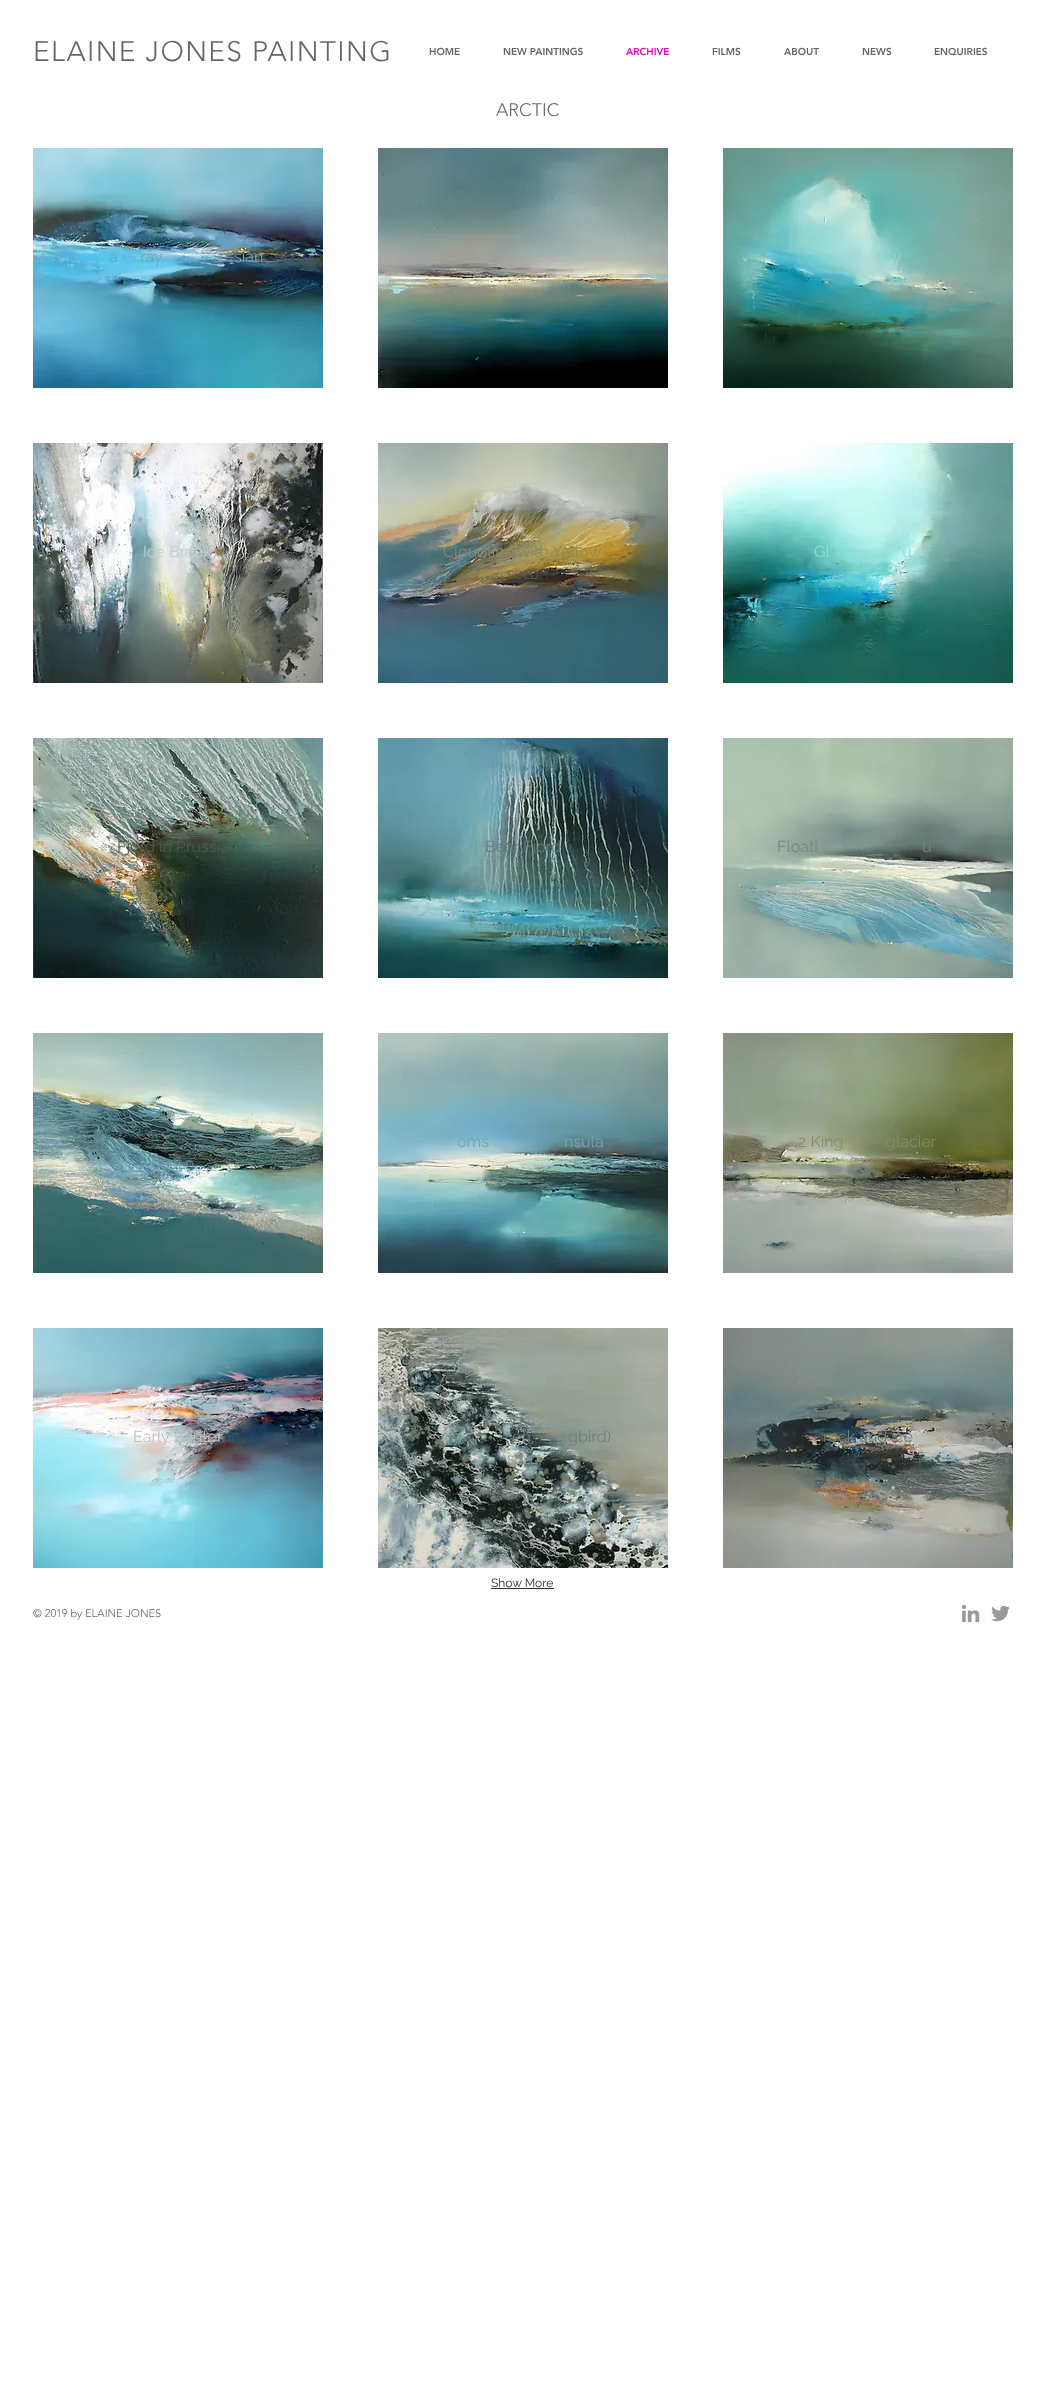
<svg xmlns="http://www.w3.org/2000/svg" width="1045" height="2388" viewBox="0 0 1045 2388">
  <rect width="100%" height="100%" fill="rgb(255,255,255)"/>
  <text x="33" y="61" font-family="'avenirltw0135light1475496'" font-size="28" font-weight="300" letter-spacing="1.4" fill="rgb(102,102,102)">ELAINE JONES PAINTING</text>
  <g font-family="'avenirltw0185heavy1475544'" font-size="10" font-weight="900" fill="rgb(102,102,102)">
    <text x="429" y="55">HOME</text>
    <text x="503" y="55">NEW PAINTINGS</text>
  </g>
  <text x="626" y="55" font-family="'avenirltw0185heavy1475544'" font-size="10" font-weight="900" fill="rgb(234,4,184)">ARCHIVE</text>
  <g font-family="'avenirltw0185heavy1475544'" font-size="10" font-weight="900" fill="rgb(102,102,102)">
    <text x="712" y="55">FILMS</text>
    <text x="784" y="55">ABOUT</text>
    <text x="862" y="55">NEWS</text>
    <text x="934" y="55">ENQUIRIES</text>
  </g>
  <text x="496" y="116" font-family="'avenirltw0135light1475496'" font-size="18" font-weight="300" fill="rgb(102,102,102)">ARCTIC</text>
  <image x="33" y="148" width="290" height="240" href="pic1.png"/>
  <g font-family="Raleway" font-size="16" fill="rgb(105,168,193)">
    <text x="109" y="262">a</text>
    <text x="140" y="262">ray</text>
    <text x="234" y="262">sian</text>
  </g>
  <image x="723" y="148" width="290" height="240" href="pic2.png"/>
  <text x="893" y="262" font-family="Raleway" font-size="16" fill="rgb(157,214,209)">y</text>
  <image x="378" y="148" width="290" height="240" href="pic3.png"/>
  <text x="507" y="284" font-family="Raleway" font-size="12" fill="rgb(190,183,155)">SOLD</text>
  <image x="33" y="443" width="290" height="240" href="pic4.png"/>
  <text x="143" y="557" font-family="Raleway" font-size="16" fill="rgb(193,206,206)">Ice Break</text>
  <image x="378" y="443" width="290" height="240" href="pic5.png"/>
  <text x="443" y="557" font-family="Raleway" font-size="16" fill="rgb(142,136,91)">Cloudline with Yellow</text>
  <text x="507" y="579" font-family="Raleway" font-size="12" fill="rgb(102,91,62)">SOLD</text>
  <image x="723" y="443" width="290" height="240" href="pic6.png"/>
  <g font-family="Raleway" font-size="16" fill="rgb(147,222,215)">
    <text x="814" y="557">Gl</text>
    <text x="902" y="557">u</text>
  </g>
  <image x="33" y="738" width="290" height="240" href="pic7.png"/>
  <text x="117" y="852" font-family="Raleway" font-size="16" fill="rgb(77,91,77)">Fjord in Prussia</text>
  <image x="378" y="738" width="290" height="240" href="pic8.png"/>
  <text x="485" y="852" font-family="Raleway" font-size="16" fill="rgb(96,124,123)">Bear Fjord</text>
  <image x="723" y="738" width="290" height="240" href="pic9.png"/>
  <g font-family="Raleway" font-size="16" fill="rgb(116,136,129)">
    <text x="777" y="852">Floati</text>
    <text x="922" y="852">u</text>
  </g>
  <image x="378" y="1033" width="290" height="240" href="pic10.png"/>
  <g font-family="Raleway" font-size="16" fill="rgb(117,164,179)">
    <text x="457" y="1147">oms</text>
    <text x="564" y="1147">nsula</text>
  </g>
  <image x="723" y="1033" width="290" height="240" href="pic11.png"/>
  <g font-family="Raleway" font-size="16" fill="rgb(132,142,104)">
    <text x="798" y="1147">2 King</text>
    <text x="886" y="1147">glacier</text>
  </g>
  <image x="33" y="1033" width="290" height="240" href="pic12.png"/>
  <text x="162" y="1169" font-family="Raleway" font-size="12" fill="rgb(104,147,156)">SOLD</text>
  <image x="33" y="1328" width="290" height="240" href="pic13.png"/>
  <text x="133" y="1442" font-family="Raleway" font-size="16" fill="rgb(190,192,194)">Early Winter</text>
  <image x="378" y="1328" width="290" height="240" href="pic14.png"/>
  <g font-family="Raleway" font-size="16" fill="rgb(113,127,122)">
    <text x="512" y="1442">en</text>
    <text x="568" y="1442">gbird)</text>
  </g>
  <text x="507" y="1464" font-family="Raleway" font-size="12" fill="rgb(145,155,149)">SOLD</text>
  <image x="723" y="1328" width="290" height="240" href="pic15.png"/>
  <text x="823" y="1442" font-family="Raleway" font-size="16" fill="rgb(113,127,122)">rock and ice</text>
  <text x="491" y="1587" font-family="Raleway" font-size="12" fill="rgb(47,46,46)">Show More</text>
  <rect x="491" y="1588" width="63" height="1" fill="rgb(47,46,46)"/>
  <text x="33" y="1617" font-family="'avenirltw0135light1475496'" font-size="11" font-weight="300" fill="rgb(102,102,102)">© 2019 by ELAINE JONES</text>
  <image x="961" y="1604" width="19" height="19" href="pic16.png"/>
  <image x="991" y="1605" width="19" height="17" href="pic17.png"/>
</svg>
